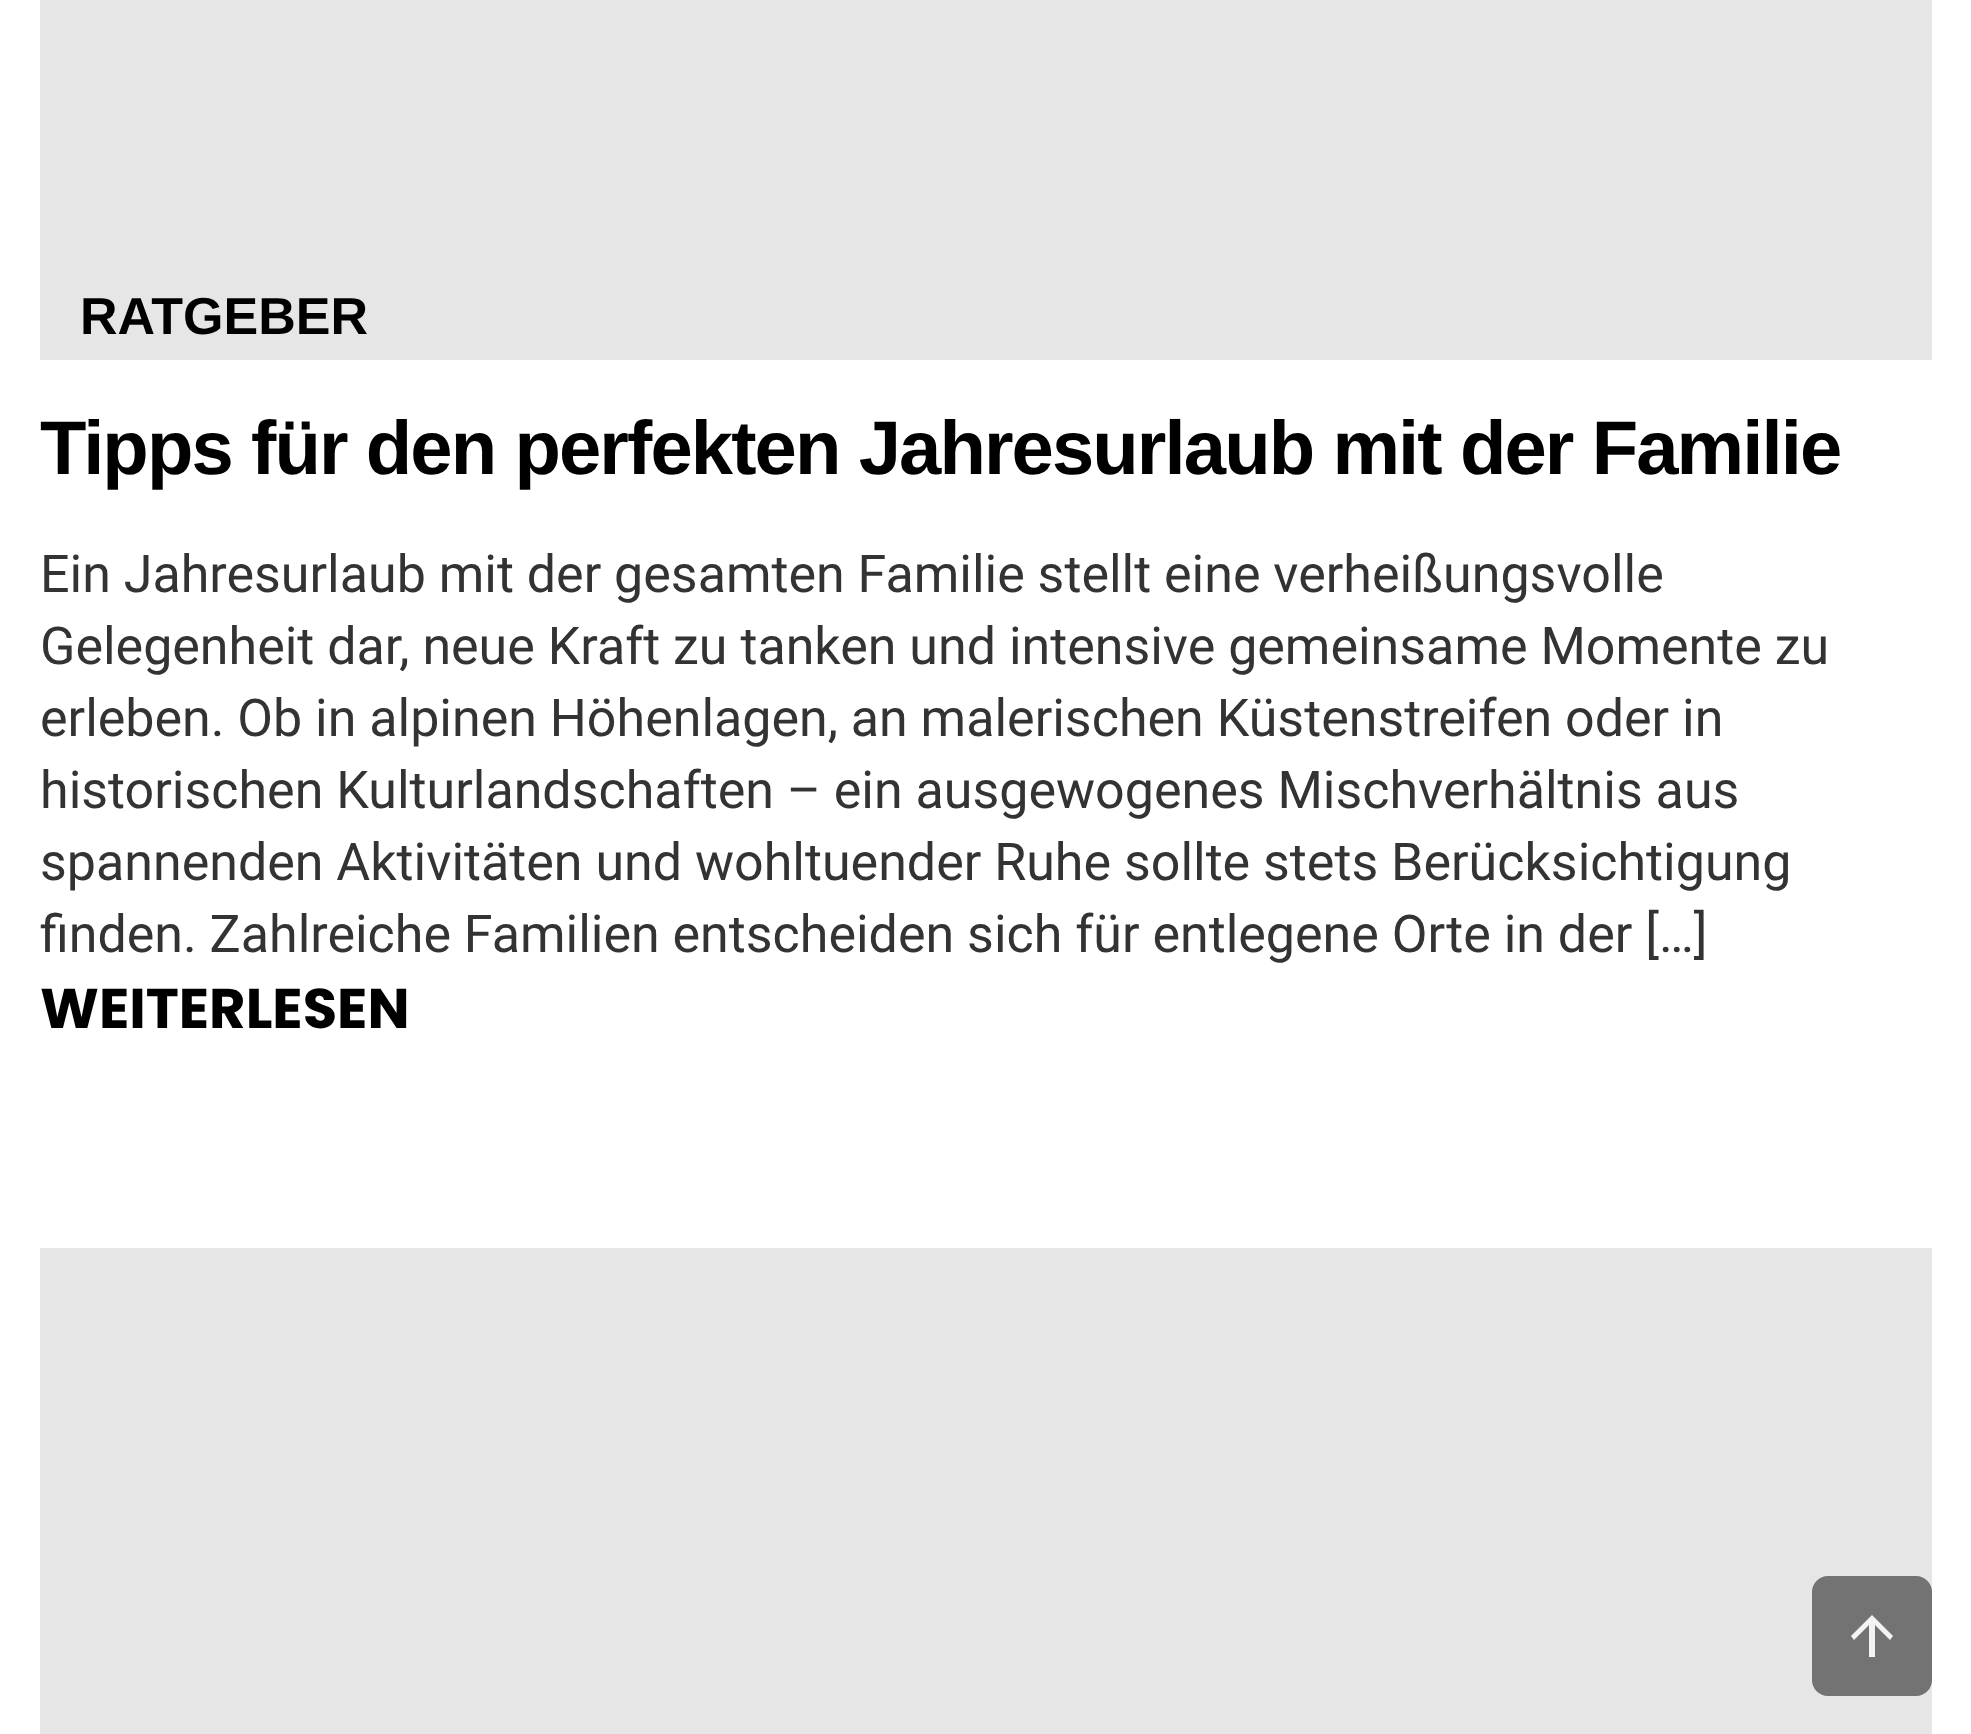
<svg xmlns="http://www.w3.org/2000/svg" width="1971" height="1734" viewBox="0 0 1971 1734">
  <rect width="100%" height="100%" fill="rgb(255,255,255)"/>
  <rect x="40" y="0" width="1892" height="360" fill="rgb(230,230,230)"/>
  <text x="80" y="334" font-family="Liberation Sans" font-size="52" font-weight="bold" fill="rgb(0,0,0)">RATGEBER</text>
  <text x="40" y="474" font-family="Liberation Sans" font-size="76" font-weight="bold" letter-spacing="-1.9" fill="rgb(0,0,0)">Tipps für den perfekten Jahresurlaub mit der Familie</text>
  <g font-family="Roboto" font-size="52" fill="rgb(51,51,51)">
    <text>
      <tspan x="40" y="592">Ein Jahresurlaub mit der gesamten Familie stellt eine verheißungsvolle</tspan>
      <tspan x="40" y="664">Gelegenheit dar, neue Kraft zu tanken und intensive gemeinsame Momente zu</tspan>
      <tspan x="40" y="736">erleben. Ob in alpinen Höhenlagen, an malerischen Küstenstreifen oder in</tspan>
      <tspan x="40" y="808">historischen Kulturlandschaften – ein ausgewogenes Mischverhältnis aus</tspan>
      <tspan x="40" y="880">spannenden Aktivitäten und wohltuender Ruhe sollte stets Berücksichtigung</tspan>
      <tspan x="40" y="952">finden. Zahlreiche Familien entscheiden sich für entlegene Orte in der […]</tspan>
    </text>
  </g>
  <text x="40" y="1028" font-family="Poppins" font-size="56" font-weight="bold" fill="rgb(0,0,0)">WEITERLESEN</text>
  <rect x="40" y="1248" width="1892" height="486" fill="rgb(230,230,230)"/>
  <rect x="1812" y="1576" width="120" height="120" rx="16" fill="rgb(115,115,115)"/>
  <path d="M1875 1657V1625L1890 1640L1893 1636L1872 1615L1851 1636L1854 1640L1869 1625V1657Z" fill="rgb(243,243,243)"/>
</svg>
